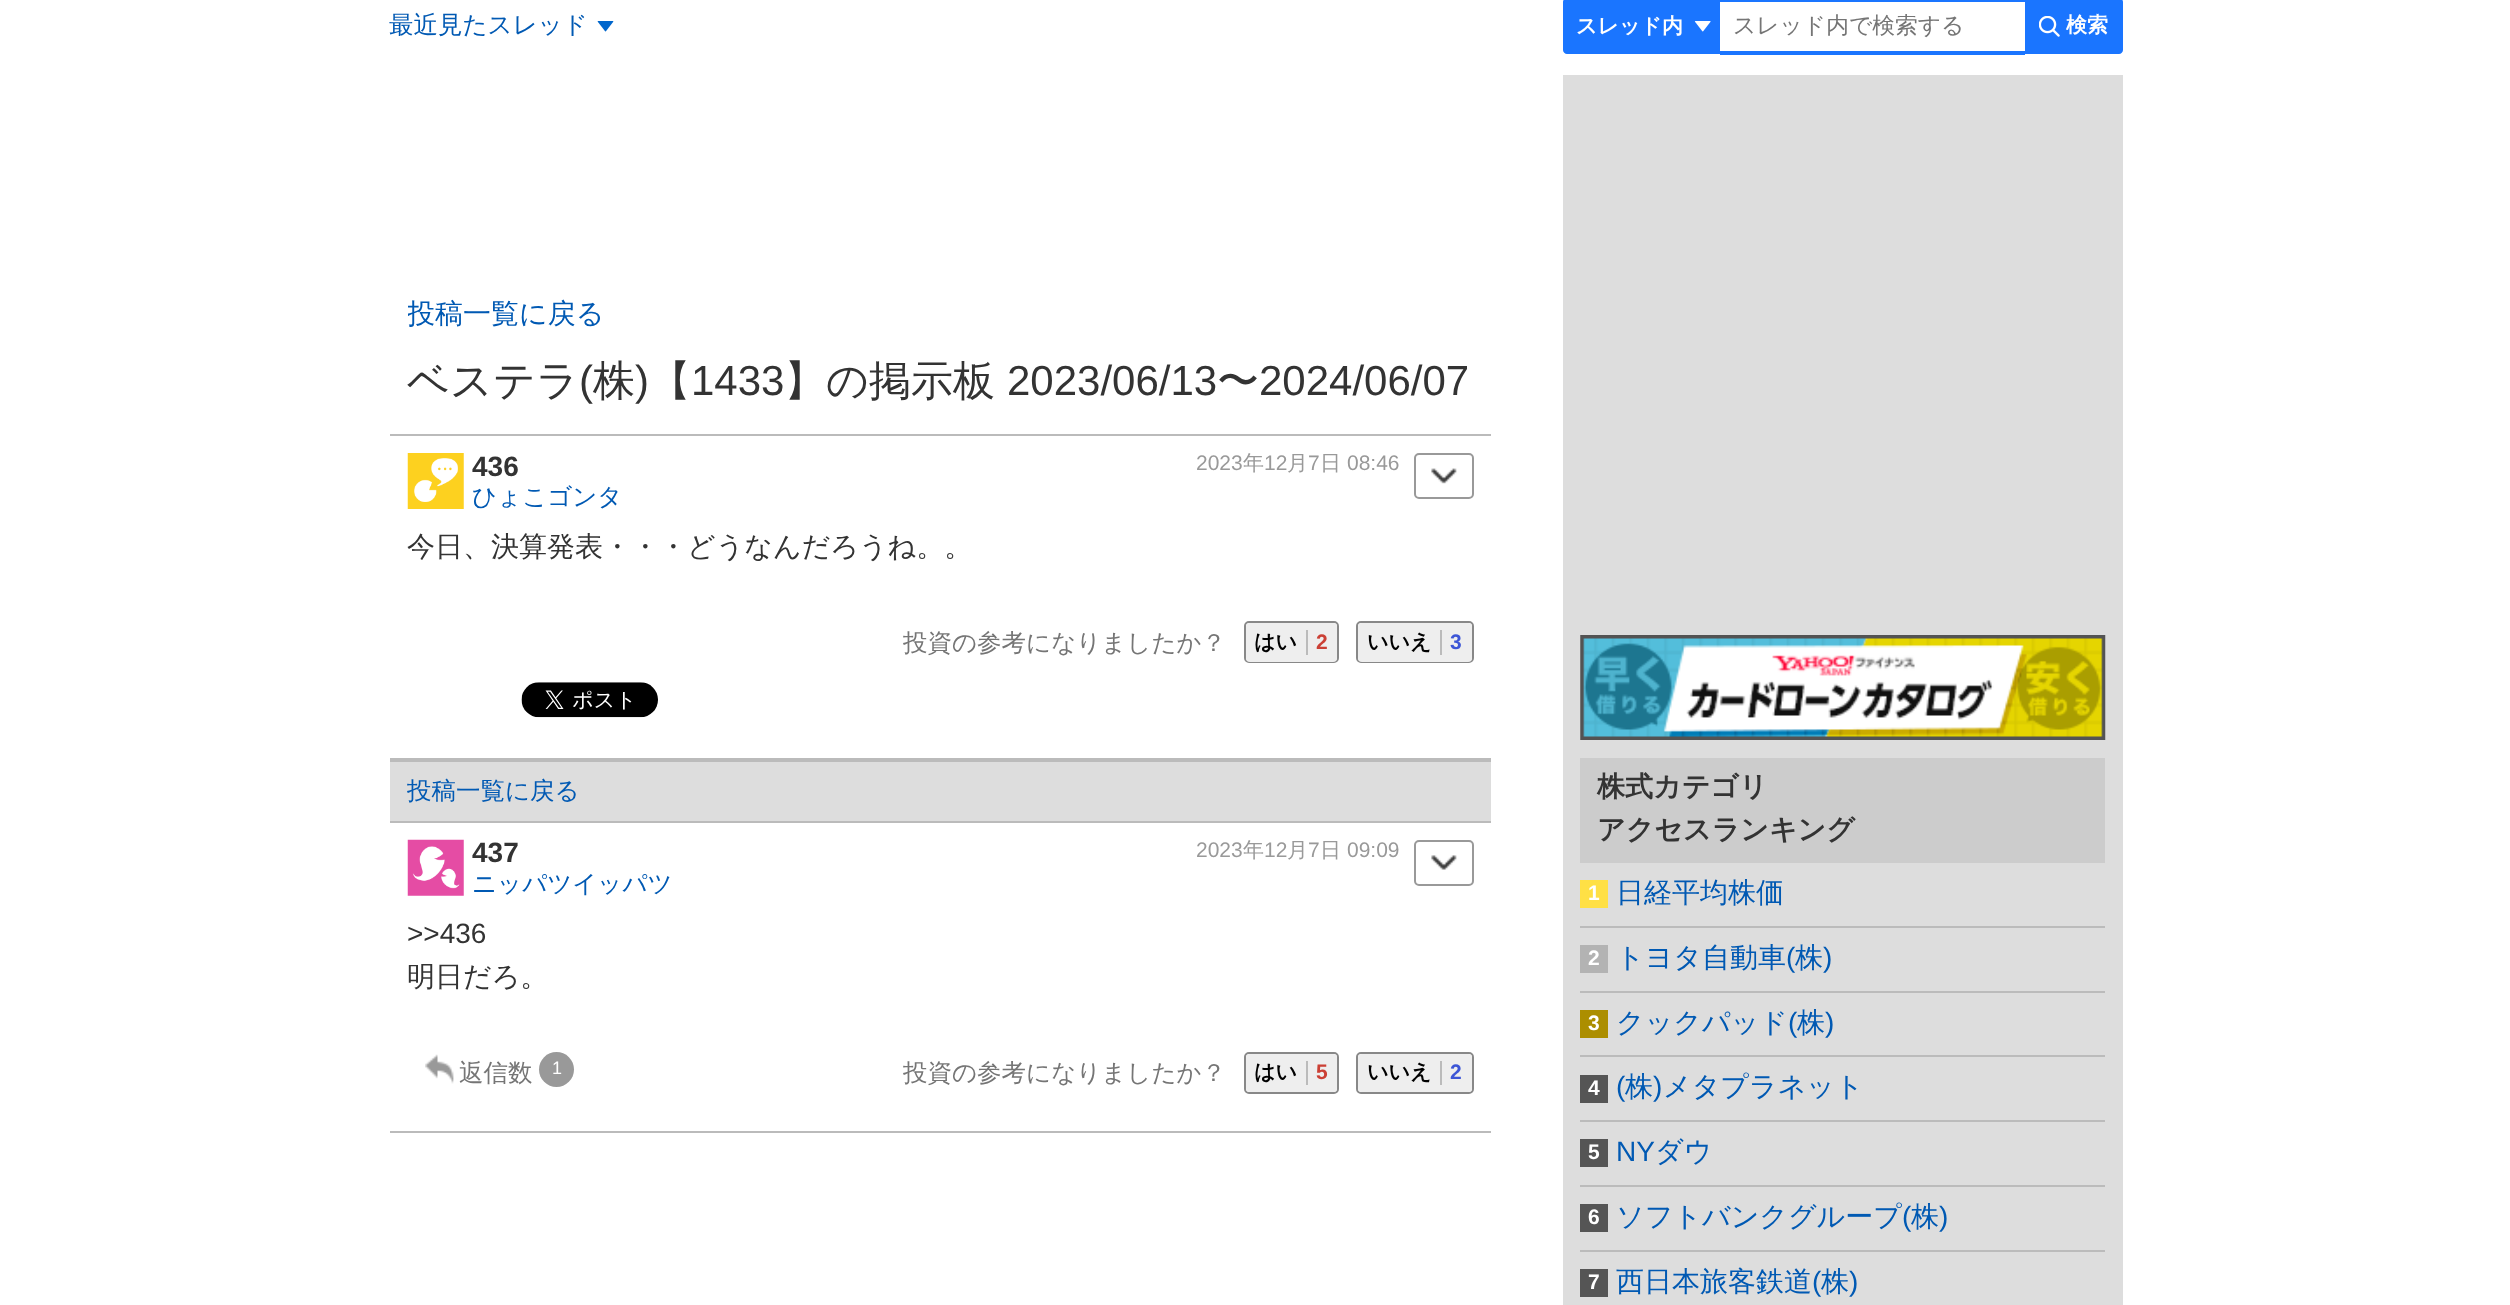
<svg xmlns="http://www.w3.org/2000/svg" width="2510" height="1305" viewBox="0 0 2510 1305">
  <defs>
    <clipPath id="clip1"><rect x="408" y="294" width="1066" height="131"/></clipPath>
  </defs>
  <rect width="100%" height="100%" fill="rgb(255,255,255)"/>
  <text x="389" y="33" font-family="WenQuanYi Zen Hei" font-size="24.5" font-weight="500" fill="rgb(0,89,179)">最近見たスレッド</text>
  <image x="597" y="21" width="17" height="11" href="pic1.png"/>
  <path d="M1567 0H1718V52H1567C1566 52 1565 51 1565 50V2C1565 1 1566 0 1567 0Z" fill="rgb(26,117,255)" stroke="rgb(26,117,255)" stroke-width="4"/>
  <text x="1576" y="33" font-family="WenQuanYi Zen Hei" font-size="21" font-weight="bold" fill="rgb(255,255,255)">スレッド内</text>
  <image x="1694" y="21" width="17" height="11" href="pic2.png"/>
  <rect x="1720" y="0" width="305" height="2" fill="rgb(26,117,255)"/>
  <rect x="1720" y="51" width="305" height="4" fill="rgb(26,117,255)"/>
  <text x="1733" y="33" font-family="WenQuanYi Zen Hei" font-size="22.75" font-weight="500" fill="rgb(117,117,117)">スレッド内で検索する</text>
  <path d="M2027 0H2119C2120 0 2121 1 2121 2V50C2121 51 2120 52 2119 52H2027Z" fill="rgb(26,117,255)" stroke="rgb(26,117,255)" stroke-width="4"/>
  <image x="2039" y="16" width="21" height="21" href="pic3.png"/>
  <text x="2066" y="32" font-family="WenQuanYi Zen Hei" font-size="21" font-weight="bold" fill="rgb(255,255,255)">検索</text>
  <g clip-path="url(#clip1)">
    <text x="407" y="323" font-family="WenQuanYi Zen Hei" font-size="28" font-weight="500" fill="rgb(0,89,179)">投稿一覧に戻る</text>
  </g>
  <text x="407" y="395" font-family="WenQuanYi Zen Hei" font-size="42" font-weight="500" fill="rgb(51,51,51)">ベステラ</text>
  <text x="579" y="395" font-family="Liberation Sans" font-size="42" fill="rgb(51,51,51)">(</text>
  <text x="593" y="395" font-family="WenQuanYi Zen Hei" font-size="42" font-weight="500" fill="rgb(51,51,51)">株</text>
  <text x="635" y="395" font-family="Liberation Sans" font-size="42" fill="rgb(51,51,51)">)</text>
  <text x="649" y="395" font-family="WenQuanYi Zen Hei" font-size="42" font-weight="500" fill="rgb(51,51,51)">【</text>
  <text x="691" y="395" font-family="Liberation Sans" font-size="42" fill="rgb(51,51,51)">1433</text>
  <text x="784" y="395" font-family="WenQuanYi Zen Hei" font-size="42" font-weight="500" fill="rgb(51,51,51)">】の掲示板</text>
  <text x="1007" y="395" font-family="Liberation Sans" font-size="42" fill="rgb(51,51,51)">2023/06/13</text>
  <text x="1217" y="395" font-family="WenQuanYi Zen Hei" font-size="42" font-weight="500" fill="rgb(51,51,51)">〜</text>
  <text x="1259" y="395" font-family="Liberation Sans" font-size="42" fill="rgb(51,51,51)">2024/06/07</text>
  <rect x="390" y="434" width="1101" height="2" fill="rgb(187,187,187)"/>
  <text x="1196" y="470" font-family="Liberation Sans" font-size="21" fill="rgb(153,153,153)">2023</text>
  <text x="1243" y="470" font-family="WenQuanYi Zen Hei" font-size="21" font-weight="500" fill="rgb(153,153,153)">年</text>
  <text x="1264" y="470" font-family="Liberation Sans" font-size="21" fill="rgb(153,153,153)">12</text>
  <text x="1287" y="470" font-family="WenQuanYi Zen Hei" font-size="21" font-weight="500" fill="rgb(153,153,153)">月</text>
  <text x="1308" y="470" font-family="Liberation Sans" font-size="21" fill="rgb(153,153,153)">7</text>
  <text x="1320" y="470" font-family="WenQuanYi Zen Hei" font-size="21" font-weight="500" fill="rgb(153,153,153)">日</text>
  <text x="1347" y="470" font-family="Liberation Sans" font-size="21" fill="rgb(153,153,153)">08:46</text>
  <image x="407" y="453" width="57" height="56" href="pic4.png"/>
  <text x="472" y="505" font-family="WenQuanYi Zen Hei" font-size="24.5" font-weight="500" fill="rgb(0,89,179)">ひょこゴンタ</text>
  <text x="472" y="476" font-family="Liberation Sans" font-size="28" font-weight="bold" fill="rgb(51,51,51)">436</text>
  <image x="1431" y="468" width="26" height="16" href="pic5.png"/>
  <rect x="1415" y="454" width="58" height="44" rx="4" fill="none" stroke="rgb(153,153,153)" stroke-width="2"/>
  <text x="407" y="556" font-family="WenQuanYi Zen Hei" font-size="28" font-weight="500" fill="rgb(51,51,51)">今日、決算発表・・・どうなんだろうね。。</text>
  <text x="903" y="651" font-family="WenQuanYi Zen Hei" font-size="24.5" font-weight="500" fill="rgb(117,117,117)">投資の参考になりましたか？</text>
  <rect x="1245" y="622" width="93" height="40" rx="4" fill="none" stroke="rgb(136,136,136)" stroke-width="2"/>
  <rect x="1246" y="623" width="91" height="39" rx="4" fill="rgb(238,238,238)"/>
  <text x="1254" y="649" font-family="WenQuanYi Zen Hei" font-size="21" font-weight="bold" fill="rgb(0,0,0)">はい</text>
  <text x="1316" y="649" font-family="Liberation Sans" font-size="21" font-weight="bold" fill="rgb(203,64,53)">2</text>
  <rect x="1306" y="630" width="2" height="25" fill="rgb(187,187,187)"/>
  <rect x="1357" y="622" width="116" height="40" rx="4" fill="none" stroke="rgb(136,136,136)" stroke-width="2"/>
  <rect x="1358" y="623" width="114" height="39" rx="4" fill="rgb(238,238,238)"/>
  <text x="1367" y="649" font-family="WenQuanYi Zen Hei" font-size="21" font-weight="bold" fill="rgb(0,0,0)">いいえ</text>
  <text x="1450" y="649" font-family="Liberation Sans" font-size="21" font-weight="bold" fill="rgb(61,86,214)">3</text>
  <rect x="1440" y="630" width="2" height="25" fill="rgb(187,187,187)"/>
  <image x="521" y="682" width="137" height="36" href="pic6.png"/>
  <rect x="390" y="762" width="1101" height="59" fill="rgb(221,221,221)"/>
  <rect x="390" y="758" width="1101" height="4" fill="rgb(187,187,187)"/>
  <rect x="390" y="821" width="1101" height="2" fill="rgb(187,187,187)"/>
  <text x="407" y="799" font-family="WenQuanYi Zen Hei" font-size="24.5" font-weight="500" fill="rgb(0,89,179)">投稿一覧に戻る</text>
  <rect x="390" y="1131" width="1101" height="2" fill="rgb(187,187,187)"/>
  <text x="1196" y="857" font-family="Liberation Sans" font-size="21" fill="rgb(153,153,153)">2023</text>
  <text x="1243" y="857" font-family="WenQuanYi Zen Hei" font-size="21" font-weight="500" fill="rgb(153,153,153)">年</text>
  <text x="1264" y="857" font-family="Liberation Sans" font-size="21" fill="rgb(153,153,153)">12</text>
  <text x="1287" y="857" font-family="WenQuanYi Zen Hei" font-size="21" font-weight="500" fill="rgb(153,153,153)">月</text>
  <text x="1308" y="857" font-family="Liberation Sans" font-size="21" fill="rgb(153,153,153)">7</text>
  <text x="1320" y="857" font-family="WenQuanYi Zen Hei" font-size="21" font-weight="500" fill="rgb(153,153,153)">日</text>
  <text x="1347" y="857" font-family="Liberation Sans" font-size="21" fill="rgb(153,153,153)">09:09</text>
  <image x="407" y="839" width="57" height="57" href="pic7.png"/>
  <text x="472" y="892" font-family="WenQuanYi Zen Hei" font-size="24.5" font-weight="500" fill="rgb(0,89,179)">ニッパツイッパツ</text>
  <text x="472" y="862" font-family="Liberation Sans" font-size="28" font-weight="bold" fill="rgb(51,51,51)">437</text>
  <image x="1431" y="855" width="26" height="15" href="pic8.png"/>
  <rect x="1415" y="841" width="58" height="44" rx="4" fill="none" stroke="rgb(153,153,153)" stroke-width="2"/>
  <text x="407" y="943" font-family="Liberation Sans" font-size="28" fill="rgb(51,51,51)">&gt;&gt;436</text>
  <text x="407" y="986" font-family="WenQuanYi Zen Hei" font-size="28" font-weight="500" fill="rgb(51,51,51)">明日だろ。</text>
  <image x="425" y="1054" width="29" height="30" href="pic9.png"/>
  <text x="459" y="1081" font-family="WenQuanYi Zen Hei" font-size="24.5" font-weight="500" fill="rgb(117,117,117)">返信数</text>
  <circle cx="556.5" cy="1069.5" r="17.5" fill="rgb(153,153,153)"/>
  <text x="552" y="1074" font-family="Liberation Sans" font-size="18" fill="rgb(255,255,255)">1</text>
  <text x="903" y="1081" font-family="WenQuanYi Zen Hei" font-size="24.5" font-weight="500" fill="rgb(117,117,117)">投資の参考になりましたか？</text>
  <rect x="1245" y="1053" width="93" height="40" rx="4" fill="none" stroke="rgb(136,136,136)" stroke-width="2"/>
  <rect x="1246" y="1054" width="91" height="38" rx="4" fill="rgb(238,238,238)"/>
  <text x="1254" y="1079" font-family="WenQuanYi Zen Hei" font-size="21" font-weight="bold" fill="rgb(0,0,0)">はい</text>
  <text x="1316" y="1079" font-family="Liberation Sans" font-size="21" font-weight="bold" fill="rgb(203,64,53)">5</text>
  <rect x="1306" y="1061" width="2" height="24" fill="rgb(187,187,187)"/>
  <rect x="1357" y="1053" width="116" height="40" rx="4" fill="none" stroke="rgb(136,136,136)" stroke-width="2"/>
  <rect x="1358" y="1054" width="114" height="38" rx="4" fill="rgb(238,238,238)"/>
  <text x="1367" y="1079" font-family="WenQuanYi Zen Hei" font-size="21" font-weight="bold" fill="rgb(0,0,0)">いいえ</text>
  <text x="1450" y="1079" font-family="Liberation Sans" font-size="21" font-weight="bold" fill="rgb(61,86,214)">2</text>
  <rect x="1440" y="1061" width="2" height="24" fill="rgb(187,187,187)"/>
  <rect x="1563" y="75" width="560" height="1230" fill="rgb(221,221,221)"/>
  <image x="1580" y="635" width="526" height="105" href="pic10.png"/>
  <rect x="1580" y="758" width="525" height="105" fill="rgb(204,204,204)"/>
  <g font-family="WenQuanYi Zen Hei" font-size="28" font-weight="bold" fill="rgb(51,51,51)">
    <text>
      <tspan x="1597" y="796">株式カテゴリ</tspan>
      <tspan x="1597" y="839">アクセスランキング</tspan>
    </text>
  </g>
  <rect x="1580" y="926" width="525" height="2" fill="rgb(187,187,187)"/>
  <rect x="1580" y="880" width="28" height="28" fill="rgb(255,224,69)"/>
  <text x="1588" y="900" font-family="Liberation Sans" font-size="21" font-weight="bold" fill="rgb(255,255,255)">1</text>
  <text x="1616" y="902" font-family="WenQuanYi Zen Hei" font-size="28" font-weight="500" fill="rgb(0,89,179)">日経平均株価</text>
  <rect x="1580" y="991" width="525" height="2" fill="rgb(187,187,187)"/>
  <rect x="1580" y="945" width="28" height="28" fill="rgb(179,179,179)"/>
  <text x="1588" y="965" font-family="Liberation Sans" font-size="21" font-weight="bold" fill="rgb(255,255,255)">2</text>
  <text x="1616" y="967" font-family="WenQuanYi Zen Hei" font-size="28" font-weight="500" fill="rgb(0,89,179)">トヨタ自動車</text>
  <text x="1786" y="967" font-family="Liberation Sans" font-size="28" fill="rgb(0,89,179)">(</text>
  <text x="1795" y="967" font-family="WenQuanYi Zen Hei" font-size="28" font-weight="500" fill="rgb(0,89,179)">株</text>
  <text x="1823" y="967" font-family="Liberation Sans" font-size="28" fill="rgb(0,89,179)">)</text>
  <rect x="1580" y="1055" width="525" height="2" fill="rgb(187,187,187)"/>
  <rect x="1580" y="1010" width="28" height="28" fill="rgb(172,142,0)"/>
  <text x="1588" y="1030" font-family="Liberation Sans" font-size="21" font-weight="bold" fill="rgb(255,255,255)">3</text>
  <text x="1616" y="1032" font-family="WenQuanYi Zen Hei" font-size="28" font-weight="500" fill="rgb(0,89,179)">クックパッド</text>
  <text x="1788" y="1032" font-family="Liberation Sans" font-size="28" fill="rgb(0,89,179)">(</text>
  <text x="1797" y="1032" font-family="WenQuanYi Zen Hei" font-size="28" font-weight="500" fill="rgb(0,89,179)">株</text>
  <text x="1825" y="1032" font-family="Liberation Sans" font-size="28" fill="rgb(0,89,179)">)</text>
  <rect x="1580" y="1120" width="525" height="2" fill="rgb(187,187,187)"/>
  <rect x="1580" y="1075" width="28" height="28" fill="rgb(85,85,85)"/>
  <text x="1588" y="1095" font-family="Liberation Sans" font-size="21" font-weight="bold" fill="rgb(255,255,255)">4</text>
  <text x="1616" y="1096" font-family="Liberation Sans" font-size="28" fill="rgb(0,89,179)">(</text>
  <text x="1625" y="1096" font-family="WenQuanYi Zen Hei" font-size="28" font-weight="500" fill="rgb(0,89,179)">株</text>
  <text x="1653" y="1096" font-family="Liberation Sans" font-size="28" fill="rgb(0,89,179)">)</text>
  <text x="1663" y="1096" font-family="WenQuanYi Zen Hei" font-size="28" font-weight="500" fill="rgb(0,89,179)">メタプラネット</text>
  <rect x="1580" y="1185" width="525" height="2" fill="rgb(187,187,187)"/>
  <rect x="1580" y="1139" width="28" height="28" fill="rgb(85,85,85)"/>
  <text x="1588" y="1159" font-family="Liberation Sans" font-size="21" font-weight="bold" fill="rgb(255,255,255)">5</text>
  <text x="1616" y="1161" font-family="Liberation Sans" font-size="28" fill="rgb(0,89,179)">NY</text>
  <text x="1655" y="1161" font-family="WenQuanYi Zen Hei" font-size="28" font-weight="500" fill="rgb(0,89,179)">ダウ</text>
  <rect x="1580" y="1250" width="525" height="2" fill="rgb(187,187,187)"/>
  <rect x="1580" y="1204" width="28" height="28" fill="rgb(85,85,85)"/>
  <text x="1588" y="1224" font-family="Liberation Sans" font-size="21" font-weight="bold" fill="rgb(255,255,255)">6</text>
  <text x="1616" y="1226" font-family="WenQuanYi Zen Hei" font-size="28" font-weight="500" fill="rgb(0,89,179)">ソフトバンクグループ</text>
  <text x="1902" y="1226" font-family="Liberation Sans" font-size="28" fill="rgb(0,89,179)">(</text>
  <text x="1911" y="1226" font-family="WenQuanYi Zen Hei" font-size="28" font-weight="500" fill="rgb(0,89,179)">株</text>
  <text x="1939" y="1226" font-family="Liberation Sans" font-size="28" fill="rgb(0,89,179)">)</text>
  <rect x="1580" y="1269" width="28" height="28" fill="rgb(85,85,85)"/>
  <text x="1588" y="1289" font-family="Liberation Sans" font-size="21" font-weight="bold" fill="rgb(255,255,255)">7</text>
  <text x="1616" y="1291" font-family="WenQuanYi Zen Hei" font-size="28" font-weight="500" fill="rgb(0,89,179)">西日本旅客鉄道</text>
  <text x="1812" y="1291" font-family="Liberation Sans" font-size="28" fill="rgb(0,89,179)">(</text>
  <text x="1821" y="1291" font-family="WenQuanYi Zen Hei" font-size="28" font-weight="500" fill="rgb(0,89,179)">株</text>
  <text x="1849" y="1291" font-family="Liberation Sans" font-size="28" fill="rgb(0,89,179)">)</text>
</svg>
